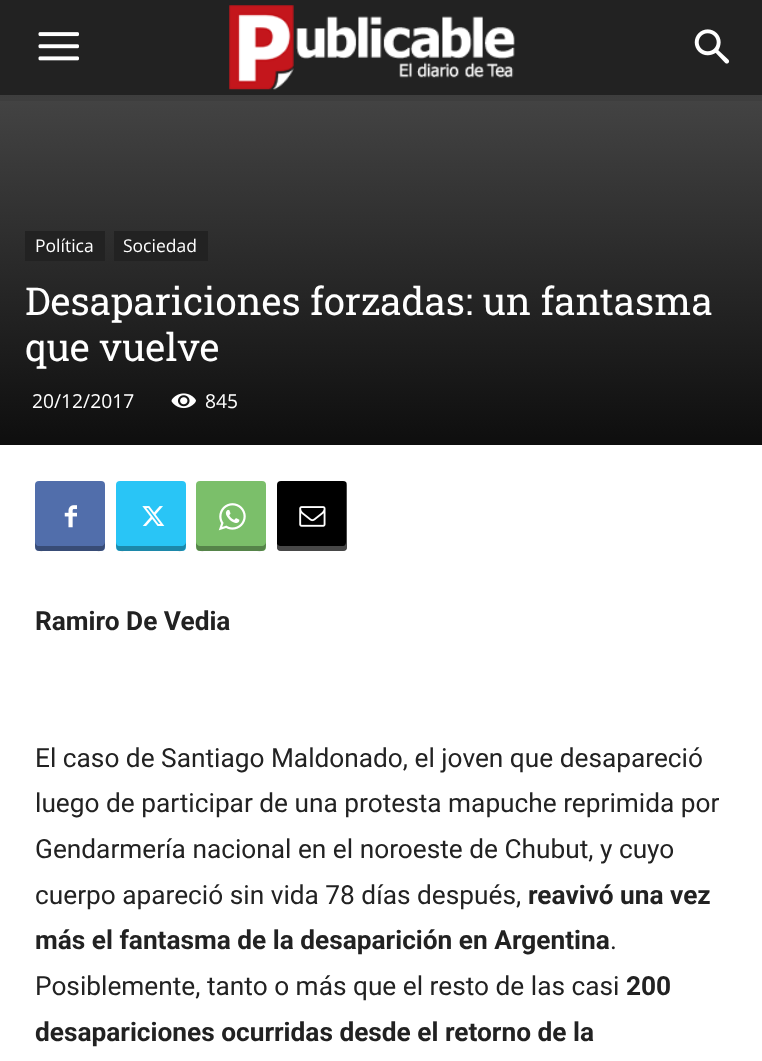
<svg xmlns="http://www.w3.org/2000/svg" width="762" height="1061" viewBox="0 0 762 1061">
  <defs>
    <linearGradient id="g1" gradientUnits="userSpaceOnUse" x1="382" y1="94" x2="382" y2="445"><stop offset="0" stop-color="rgb(68,68,68)"/><stop offset="1" stop-color="rgb(14,14,14)"/></linearGradient>
  </defs>
  <rect width="100%" height="100%" fill="rgb(255,255,255)"/>
  <rect x="0" y="0" width="762" height="95" fill="rgb(34,34,34)"/>
  <image x="38" y="32" width="41" height="29" href="pic1.png"/>
  <image x="229" y="5" width="286" height="85" href="pic2.png"/>
  <image x="694" y="29" width="36" height="35" href="pic3.png"/>
  <rect x="0" y="95" width="762" height="350" fill="url(#g1)"/>
  <image x="0" y="95" width="762" height="6" href="pic4.png"/>
  <rect x="25" y="231" width="80" height="30" fill="rgb(34,34,34)"/>
  <text x="35" y="252" font-family="Open Sans" font-size="17.5" fill="rgb(255,255,255)">Política</text>
  <rect x="114" y="231" width="94" height="30" fill="rgb(34,34,34)"/>
  <text x="123" y="252" font-family="Open Sans" font-size="17.5" fill="rgb(255,255,255)">Sociedad</text>
  <g font-family="Roboto Slab" font-size="38.5" fill="rgb(255,255,255)">
    <text>
      <tspan x="25" y="315">Desapariciones forzadas: un fantasma</tspan>
      <tspan x="25" y="361">que vuelve</tspan>
    </text>
  </g>
  <text x="32" y="408" font-family="Open Sans" font-size="19.25" fill="rgb(255,255,255)">20/12/2017</text>
  <image x="171" y="393" width="25" height="16" href="pic5.png"/>
  <text x="205" y="408" font-family="Open Sans" font-size="19.25" fill="rgb(255,255,255)">845</text>
  <rect x="35" y="481" width="70" height="70" rx="4" fill="rgb(81,110,171)"/>
  <path d="M35 542C35 553 37 551 49 551H91C103 551 105 553 105 542C105 544 103 546 102 546H38C37 546 35 544 35 542Z" fill="rgba(0,0,0,0.31)"/>
  <image x="64" y="505" width="13" height="23" href="pic6.png"/>
  <rect x="116" y="481" width="70" height="70" rx="4" fill="rgb(41,197,246)"/>
  <path d="M116 542C116 553 118 551 130 551H172C184 551 186 553 186 542C186 544 184 546 182 546H119C117 546 116 544 116 542Z" fill="rgba(0,0,0,0.31)"/>
  <image x="142" y="506" width="23" height="20" href="pic7.png"/>
  <rect x="196" y="481" width="70" height="70" rx="4" fill="rgb(123,191,106)"/>
  <path d="M196 542C196 553 198 551 210 551H252C264 551 266 553 266 542C266 544 264 546 262 546H200C198 546 196 544 196 542Z" fill="rgba(0,0,0,0.31)"/>
  <image x="218" y="503" width="28" height="28" href="pic8.png"/>
  <rect x="277" y="481" width="70" height="70" rx="4" fill="rgb(0,0,0)"/>
  <path d="M277 544V547C277 549 279 551 281 551H343C345 551 347 549 347 547V485C347 484 347 483 346 482V542C346 544 345 546 343 546H280C279 546 278 545 277 544Z" fill="rgba(255,255,255,0.28)"/>
  <image x="299" y="506" width="27" height="21" href="pic9.png"/>
  <text x="35" y="630" font-family="Roboto" font-size="26.25" font-weight="bold" fill="rgb(34,34,34)">Ramiro De Vedia</text>
  <g font-family="Roboto" font-size="26.25" fill="rgb(34,34,34)">
    <text>
      <tspan x="35" y="767">El caso de Santiago Maldonado, el joven que desapareció</tspan>
      <tspan x="35" y="812">luego de participar de una protesta mapuche reprimida por</tspan>
      <tspan x="35" y="858">Gendarmería nacional en el noroeste de Chubut, y cuyo</tspan>
      <tspan x="35" y="904">cuerpo apareció sin vida 78 días después,</tspan>
    </text>
  </g>
  <g font-family="Roboto" font-size="26.25" font-weight="bold" fill="rgb(34,34,34)">
    <text x="528" y="904">reavivó una vez</text>
    <text x="35" y="949">más el fantasma de la desaparición en Argentina</text>
  </g>
  <g font-family="Roboto" font-size="26.25" fill="rgb(34,34,34)">
    <text x="610" y="949">.</text>
    <text x="35" y="995">Posiblemente, tanto o más que el resto de las casi</text>
  </g>
  <g font-family="Roboto" font-size="26.25" font-weight="bold" fill="rgb(34,34,34)">
    <text x="626" y="995">200</text>
    <text x="35" y="1041">desapariciones ocurridas desde el retorno de la</text>
  </g>
</svg>
